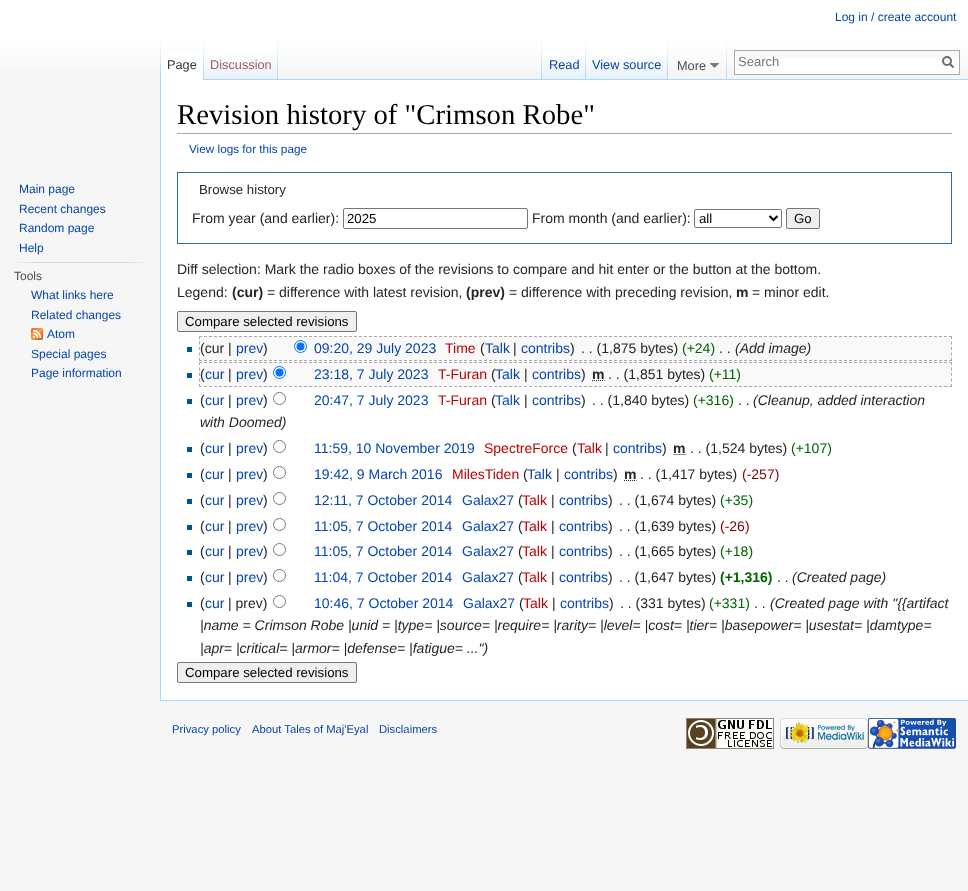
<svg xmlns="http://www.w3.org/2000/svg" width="968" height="891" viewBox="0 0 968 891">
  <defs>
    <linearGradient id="g1" gradientUnits="userSpaceOnUse" x1="484" y1="0" x2="484" y2="80"><stop offset="0.5" stop-color="rgb(255,255,255)"/><stop offset="1" stop-color="rgb(246,246,246)"/></linearGradient>
  </defs>
  <rect width="100%" height="100%" fill="rgb(246,246,246)"/>
  <rect x="0" y="0" width="968" height="69" fill="url(#g1)"/>
  <text x="835" y="21" font-family="Liberation Sans" font-size="12" fill="rgb(6,69,173)">Log in / create account</text>
  <image x="160" y="40" width="1" height="39" href="pic1.png"/>
  <rect x="161" y="51" width="42" height="29" fill="rgb(255,255,255)"/>
  <image x="203" y="40" width="1" height="40" href="pic2.png"/>
  <text x="167" y="69" font-family="Liberation Sans" font-size="12.75" fill="rgb(51,51,51)">Page</text>
  <image x="204" y="40" width="74" height="40" href="pic3.png"/>
  <image x="277" y="40" width="1" height="39" href="pic4.png"/>
  <text x="210" y="69" font-family="Liberation Sans" font-size="12.75" fill="rgb(165,88,88)">Discussion</text>
  <image x="541" y="40" width="1" height="39" href="pic1.png"/>
  <rect x="278" y="79" width="690" height="1" fill="rgb(167,215,249)"/>
  <image x="542" y="40" width="44" height="40" href="pic5.png"/>
  <image x="585" y="40" width="1" height="39" href="pic4.png"/>
  <text x="549" y="69" font-family="Liberation Sans" font-size="12.75" fill="rgb(6,69,173)">Read</text>
  <image x="586" y="40" width="82" height="40" href="pic6.png"/>
  <image x="667" y="40" width="1" height="39" href="pic4.png"/>
  <text x="592" y="69" font-family="Liberation Sans" font-size="12.75" fill="rgb(6,69,173)">View source</text>
  <image x="726" y="40" width="1" height="39" href="pic1.png"/>
  <text x="677" y="70" font-family="Liberation Sans" font-size="12.75" fill="rgb(77,77,77)">More</text>
  <path d="M719.5 63L714.5 68L709.5 63Z" fill="rgb(121,121,121)"/>
  <rect x="735" y="59" width="224" height="15" fill="rgb(255,255,255)"/>
  <image x="735" y="51" width="224" height="8" href="pic7.png"/>
  <rect x="734.5" y="50.5" width="225" height="24" fill="none" stroke="rgb(170,170,170)"/>
  <text x="738" y="66" font-family="Liberation Sans" font-size="13" fill="rgb(117,117,117)">Search</text>
  <path d="M953.5 67.5L949.5 63.5" fill="none" stroke="rgb(108,108,108)" stroke-width="2"/>
  <circle cx="947" cy="61" r="4" fill="none" stroke="rgb(108,108,108)" stroke-width="2"/>
  <g font-family="Liberation Sans" font-size="12" fill="rgb(6,69,173)">
    <text>
      <tspan x="19" y="193">Main page</tspan>
      <tspan x="19" y="213">Recent changes</tspan>
      <tspan x="19" y="232">Random page</tspan>
      <tspan x="19" y="252">Help</tspan>
    </text>
  </g>
  <image x="14" y="262" width="135" height="1" href="pic8.png"/>
  <text x="14" y="280" font-family="Liberation Sans" font-size="12" fill="rgb(77,77,77)">Tools</text>
  <g font-family="Liberation Sans" font-size="12" fill="rgb(6,69,173)">
    <text>
      <tspan x="31" y="299">What links here</tspan>
      <tspan x="31" y="319">Related changes</tspan>
    </text>
  </g>
  <image x="31" y="328" width="12" height="12" href="pic9.png"/>
  <g font-family="Liberation Sans" font-size="12" fill="rgb(6,69,173)">
    <text x="47" y="338">Atom</text>
    <text>
      <tspan x="31" y="358">Special pages</tspan>
      <tspan x="31" y="377">Page information</tspan>
    </text>
  </g>
  <rect x="161" y="80" width="807" height="620" fill="rgb(255,255,255)"/>
  <rect x="160" y="700" width="808" height="1" fill="rgb(167,215,249)"/>
  <rect x="160" y="79" width="1" height="622" fill="rgb(167,215,249)"/>
  <rect x="177" y="133" width="775" height="1" fill="rgb(170,170,170)"/>
  <text x="177" y="124" font-family="Liberation Serif" font-size="28.75" fill="rgb(0,0,0)">Revision history of "Crimson Robe"</text>
  <text x="189" y="153" font-family="Liberation Sans" font-size="11.75" fill="rgb(6,69,173)">View logs for this page</text>
  <rect x="177.5" y="172.5" width="774" height="71" fill="none" stroke="rgb(47,111,171)"/>
  <text x="199" y="194" font-family="Liberation Sans" font-size="13.25" fill="rgb(37,37,37)">Browse history</text>
  <text x="192" y="223" font-family="Liberation Sans" font-size="14" fill="rgb(37,37,37)">From year (and earlier):</text>
  <rect x="343.5" y="208.5" width="184" height="20" rx="1.5" fill="none" stroke="rgb(118,118,118)"/>
  <text x="347" y="223" font-family="Liberation Sans" font-size="13.25" fill="rgb(0,0,0)">2025</text>
  <text x="532" y="223" font-family="Liberation Sans" font-size="14" fill="rgb(37,37,37)">From month (and earlier):</text>
  <rect x="694.5" y="209.5" width="87" height="18" rx="1.5" fill="none" stroke="rgb(118,118,118)"/>
  <path d="M769.5 216L773.5 220L777.5 216" fill="none" stroke="rgb(0,0,0)" stroke-width="2"/>
  <text x="699" y="223" font-family="Liberation Sans" font-size="13.25" fill="rgb(0,0,0)">all</text>
  <rect x="786.5" y="208.5" width="33" height="20" rx="1.5" fill="rgb(239,239,239)" stroke="rgb(118,118,118)"/>
  <text x="794" y="223" font-family="Liberation Sans" font-size="13.25" fill="rgb(0,0,0)">Go</text>
  <g font-family="Liberation Sans" font-size="14" fill="rgb(37,37,37)">
    <text>
      <tspan x="177" y="274">Diff selection: Mark the radio boxes of the revisions to compare and hit enter or the button at the bottom.</tspan>
      <tspan x="177" y="297">Legend:</tspan>
    </text>
  </g>
  <text x="232" y="297" font-family="Liberation Sans" font-size="14" font-weight="bold" fill="rgb(37,37,37)">(cur)</text>
  <text x="267" y="297" font-family="Liberation Sans" font-size="14" fill="rgb(37,37,37)">= difference with latest revision,</text>
  <text x="466" y="297" font-family="Liberation Sans" font-size="14" font-weight="bold" fill="rgb(37,37,37)">(prev)</text>
  <text x="509" y="297" font-family="Liberation Sans" font-size="14" fill="rgb(37,37,37)">= difference with preceding revision,</text>
  <text x="736" y="297" font-family="Liberation Sans" font-size="14" font-weight="bold" fill="rgb(37,37,37)">m</text>
  <text x="752" y="297" font-family="Liberation Sans" font-size="14" fill="rgb(37,37,37)">= minor edit.</text>
  <rect x="177.5" y="311.5" width="179" height="20" rx="1.5" fill="rgb(239,239,239)" stroke="rgb(118,118,118)"/>
  <text x="185" y="326" font-family="Liberation Sans" font-size="13.25" fill="rgb(0,0,0)">Compare selected revisions</text>
  <rect x="199" y="336" width="753" height="25" fill="rgb(249,249,249)"/>
  <path d="M199 336.5H952" fill="none" stroke="rgb(170,170,170)" stroke-dasharray="3 2"/>
  <path d="M951.5 336V361" fill="none" stroke="rgb(170,170,170)" stroke-dasharray="3 2.5"/>
  <path d="M199 360.5H952" fill="none" stroke="rgb(170,170,170)" stroke-dasharray="3 2"/>
  <path d="M199.5 336V361" fill="none" stroke="rgb(170,170,170)" stroke-dasharray="3 2.5"/>
  <rect x="187" y="347" width="5" height="5" fill="rgb(0,82,140)"/>
  <text x="200" y="353" font-family="Liberation Sans" font-size="14" fill="rgb(37,37,37)">(cur |</text>
  <text x="236" y="353" font-family="Liberation Sans" font-size="14" fill="rgb(6,69,173)">prev</text>
  <text x="263" y="353" font-family="Liberation Sans" font-size="14" fill="rgb(37,37,37)">)</text>
  <circle cx="300.5" cy="346.5" r="6" fill="rgb(255,255,255)" stroke="rgb(0,117,255)"/>
  <circle cx="300.5" cy="346.5" r="4" fill="rgb(0,117,255)"/>
  <text x="314" y="353" font-family="Liberation Sans" font-size="14" fill="rgb(6,69,173)">09:20, 29 July 2023</text>
  <text x="445" y="353" font-family="Liberation Sans" font-size="14" fill="rgb(186,0,0)">Time</text>
  <text x="480" y="353" font-family="Liberation Sans" font-size="14" fill="rgb(37,37,37)">(</text>
  <text x="485" y="353" font-family="Liberation Sans" font-size="14" fill="rgb(6,69,173)">Talk</text>
  <text x="513" y="353" font-family="Liberation Sans" font-size="14" fill="rgb(37,37,37)">|</text>
  <text x="521" y="353" font-family="Liberation Sans" font-size="14" fill="rgb(6,69,173)">contribs</text>
  <g font-family="Liberation Sans" font-size="14" fill="rgb(37,37,37)">
    <text x="570" y="353">)</text>
    <text x="581" y="353">. . (1,875 bytes)</text>
  </g>
  <text x="682" y="353" font-family="Liberation Sans" font-size="14" fill="rgb(0,100,0)">(+24)</text>
  <text x="719" y="353" font-family="Liberation Sans" font-size="14" fill="rgb(37,37,37)">. .</text>
  <text x="735" y="353" font-family="Liberation Sans" font-size="14" font-style="italic" fill="rgb(37,37,37)">(Add image)</text>
  <rect x="199" y="362" width="753" height="25" fill="rgb(249,249,249)"/>
  <path d="M199 362.5H952" fill="none" stroke="rgb(170,170,170)" stroke-dasharray="3 2"/>
  <path d="M951.5 362V387" fill="none" stroke="rgb(170,170,170)" stroke-dasharray="3 2.5"/>
  <path d="M199 386.5H952" fill="none" stroke="rgb(170,170,170)" stroke-dasharray="3 2"/>
  <path d="M199.5 362V387" fill="none" stroke="rgb(170,170,170)" stroke-dasharray="3 2.5"/>
  <rect x="187" y="373" width="5" height="5" fill="rgb(0,82,140)"/>
  <text x="200" y="379" font-family="Liberation Sans" font-size="14" fill="rgb(37,37,37)">(</text>
  <text x="205" y="379" font-family="Liberation Sans" font-size="14" fill="rgb(6,69,173)">cur</text>
  <text x="228" y="379" font-family="Liberation Sans" font-size="14" fill="rgb(37,37,37)">|</text>
  <text x="236" y="379" font-family="Liberation Sans" font-size="14" fill="rgb(6,69,173)">prev</text>
  <text x="263" y="379" font-family="Liberation Sans" font-size="14" fill="rgb(37,37,37)">)</text>
  <circle cx="279.5" cy="372.5" r="6" fill="rgb(255,255,255)" stroke="rgb(0,117,255)"/>
  <circle cx="279.5" cy="372.5" r="4" fill="rgb(0,117,255)"/>
  <text x="314" y="379" font-family="Liberation Sans" font-size="14" fill="rgb(6,69,173)">23:18, 7 July 2023</text>
  <text x="438" y="379" font-family="Liberation Sans" font-size="14" fill="rgb(186,0,0)">T-Furan</text>
  <text x="491" y="379" font-family="Liberation Sans" font-size="14" fill="rgb(37,37,37)">(</text>
  <text x="495" y="379" font-family="Liberation Sans" font-size="14" fill="rgb(6,69,173)">Talk</text>
  <text x="524" y="379" font-family="Liberation Sans" font-size="14" fill="rgb(37,37,37)">|</text>
  <text x="532" y="379" font-family="Liberation Sans" font-size="14" fill="rgb(6,69,173)">contribs</text>
  <text x="581" y="379" font-family="Liberation Sans" font-size="14" fill="rgb(37,37,37)">)</text>
  <text x="592" y="379" font-family="Liberation Sans" font-size="14" font-weight="bold" fill="rgb(37,37,37)">m</text>
  <path d="M592 380.5H604.5" fill="none" stroke="rgb(37,37,37)" stroke-dasharray="1 1"/>
  <text x="608" y="379" font-family="Liberation Sans" font-size="14" fill="rgb(37,37,37)">. . (1,851 bytes)</text>
  <text x="709" y="379" font-family="Liberation Sans" font-size="14" fill="rgb(0,100,0)">(+11)</text>
  <rect x="187" y="399" width="5" height="5" fill="rgb(0,82,140)"/>
  <text x="200" y="405" font-family="Liberation Sans" font-size="14" fill="rgb(37,37,37)">(</text>
  <text x="205" y="405" font-family="Liberation Sans" font-size="14" fill="rgb(6,69,173)">cur</text>
  <text x="228" y="405" font-family="Liberation Sans" font-size="14" fill="rgb(37,37,37)">|</text>
  <text x="236" y="405" font-family="Liberation Sans" font-size="14" fill="rgb(6,69,173)">prev</text>
  <text x="263" y="405" font-family="Liberation Sans" font-size="14" fill="rgb(37,37,37)">)</text>
  <circle cx="279.5" cy="398.5" r="6" fill="none" stroke="rgb(118,118,118)"/>
  <text x="314" y="405" font-family="Liberation Sans" font-size="14" fill="rgb(6,69,173)">20:47, 7 July 2023</text>
  <text x="438" y="405" font-family="Liberation Sans" font-size="14" fill="rgb(186,0,0)">T-Furan</text>
  <text x="491" y="405" font-family="Liberation Sans" font-size="14" fill="rgb(37,37,37)">(</text>
  <text x="495" y="405" font-family="Liberation Sans" font-size="14" fill="rgb(6,69,173)">Talk</text>
  <text x="524" y="405" font-family="Liberation Sans" font-size="14" fill="rgb(37,37,37)">|</text>
  <text x="532" y="405" font-family="Liberation Sans" font-size="14" fill="rgb(6,69,173)">contribs</text>
  <g font-family="Liberation Sans" font-size="14" fill="rgb(37,37,37)">
    <text x="581" y="405">)</text>
    <text x="592" y="405">. . (1,840 bytes)</text>
  </g>
  <text x="693" y="405" font-family="Liberation Sans" font-size="14" fill="rgb(0,100,0)">(+316)</text>
  <text x="738" y="405" font-family="Liberation Sans" font-size="14" fill="rgb(37,37,37)">. .</text>
  <g font-family="Liberation Sans" font-size="14" font-style="italic" fill="rgb(37,37,37)">
    <text x="753" y="405">(Cleanup, added interaction</text>
    <text x="200" y="427">with Doomed)</text>
  </g>
  <rect x="187" y="447" width="5" height="5" fill="rgb(0,82,140)"/>
  <text x="200" y="453" font-family="Liberation Sans" font-size="14" fill="rgb(37,37,37)">(</text>
  <text x="205" y="453" font-family="Liberation Sans" font-size="14" fill="rgb(6,69,173)">cur</text>
  <text x="228" y="453" font-family="Liberation Sans" font-size="14" fill="rgb(37,37,37)">|</text>
  <text x="236" y="453" font-family="Liberation Sans" font-size="14" fill="rgb(6,69,173)">prev</text>
  <text x="263" y="453" font-family="Liberation Sans" font-size="14" fill="rgb(37,37,37)">)</text>
  <circle cx="279.5" cy="446.5" r="6" fill="none" stroke="rgb(118,118,118)"/>
  <text x="314" y="453" font-family="Liberation Sans" font-size="14" fill="rgb(6,69,173)">11:59, 10 November 2019</text>
  <text x="484" y="453" font-family="Liberation Sans" font-size="14" fill="rgb(186,0,0)">SpectreForce</text>
  <text x="572" y="453" font-family="Liberation Sans" font-size="14" fill="rgb(37,37,37)">(</text>
  <text x="577" y="453" font-family="Liberation Sans" font-size="14" fill="rgb(186,0,0)">Talk</text>
  <text x="605" y="453" font-family="Liberation Sans" font-size="14" fill="rgb(37,37,37)">|</text>
  <text x="613" y="453" font-family="Liberation Sans" font-size="14" fill="rgb(6,69,173)">contribs</text>
  <text x="662" y="453" font-family="Liberation Sans" font-size="14" fill="rgb(37,37,37)">)</text>
  <text x="673" y="453" font-family="Liberation Sans" font-size="14" font-weight="bold" fill="rgb(37,37,37)">m</text>
  <path d="M673.5 454.5H686" fill="none" stroke="rgb(37,37,37)" stroke-dasharray="1 1"/>
  <text x="690" y="453" font-family="Liberation Sans" font-size="14" fill="rgb(37,37,37)">. . (1,524 bytes)</text>
  <text x="791" y="453" font-family="Liberation Sans" font-size="14" fill="rgb(0,100,0)">(+107)</text>
  <rect x="187" y="473" width="5" height="5" fill="rgb(0,82,140)"/>
  <text x="200" y="479" font-family="Liberation Sans" font-size="14" fill="rgb(37,37,37)">(</text>
  <text x="205" y="479" font-family="Liberation Sans" font-size="14" fill="rgb(6,69,173)">cur</text>
  <text x="228" y="479" font-family="Liberation Sans" font-size="14" fill="rgb(37,37,37)">|</text>
  <text x="236" y="479" font-family="Liberation Sans" font-size="14" fill="rgb(6,69,173)">prev</text>
  <text x="263" y="479" font-family="Liberation Sans" font-size="14" fill="rgb(37,37,37)">)</text>
  <circle cx="279.5" cy="472.5" r="6" fill="none" stroke="rgb(118,118,118)"/>
  <text x="314" y="479" font-family="Liberation Sans" font-size="14" fill="rgb(6,69,173)">19:42, 9 March 2016</text>
  <text x="452" y="479" font-family="Liberation Sans" font-size="14" fill="rgb(186,0,0)">MilesTiden</text>
  <text x="523" y="479" font-family="Liberation Sans" font-size="14" fill="rgb(37,37,37)">(</text>
  <text x="527" y="479" font-family="Liberation Sans" font-size="14" fill="rgb(6,69,173)">Talk</text>
  <text x="556" y="479" font-family="Liberation Sans" font-size="14" fill="rgb(37,37,37)">|</text>
  <text x="564" y="479" font-family="Liberation Sans" font-size="14" fill="rgb(6,69,173)">contribs</text>
  <text x="613" y="479" font-family="Liberation Sans" font-size="14" fill="rgb(37,37,37)">)</text>
  <text x="624" y="479" font-family="Liberation Sans" font-size="14" font-weight="bold" fill="rgb(37,37,37)">m</text>
  <path d="M624 480.5H636.5" fill="none" stroke="rgb(37,37,37)" stroke-dasharray="1 1"/>
  <text x="640" y="479" font-family="Liberation Sans" font-size="14" fill="rgb(37,37,37)">. . (1,417 bytes)</text>
  <text x="742" y="479" font-family="Liberation Sans" font-size="14" fill="rgb(139,0,0)">(-257)</text>
  <rect x="187" y="499" width="5" height="5" fill="rgb(0,82,140)"/>
  <text x="200" y="505" font-family="Liberation Sans" font-size="14" fill="rgb(37,37,37)">(</text>
  <text x="205" y="505" font-family="Liberation Sans" font-size="14" fill="rgb(6,69,173)">cur</text>
  <text x="228" y="505" font-family="Liberation Sans" font-size="14" fill="rgb(37,37,37)">|</text>
  <text x="236" y="505" font-family="Liberation Sans" font-size="14" fill="rgb(6,69,173)">prev</text>
  <text x="263" y="505" font-family="Liberation Sans" font-size="14" fill="rgb(37,37,37)">)</text>
  <circle cx="279.5" cy="498.5" r="6" fill="none" stroke="rgb(118,118,118)"/>
  <g font-family="Liberation Sans" font-size="14" fill="rgb(6,69,173)">
    <text x="314" y="505">12:11, 7 October 2014</text>
    <text x="462" y="505">Galax27</text>
  </g>
  <text x="518" y="505" font-family="Liberation Sans" font-size="14" fill="rgb(37,37,37)">(</text>
  <text x="522" y="505" font-family="Liberation Sans" font-size="14" fill="rgb(186,0,0)">Talk</text>
  <text x="551" y="505" font-family="Liberation Sans" font-size="14" fill="rgb(37,37,37)">|</text>
  <text x="559" y="505" font-family="Liberation Sans" font-size="14" fill="rgb(6,69,173)">contribs</text>
  <g font-family="Liberation Sans" font-size="14" fill="rgb(37,37,37)">
    <text x="608" y="505">)</text>
    <text x="619" y="505">. . (1,674 bytes)</text>
  </g>
  <text x="720" y="505" font-family="Liberation Sans" font-size="14" fill="rgb(0,100,0)">(+35)</text>
  <rect x="187" y="525" width="5" height="5" fill="rgb(0,82,140)"/>
  <text x="200" y="531" font-family="Liberation Sans" font-size="14" fill="rgb(37,37,37)">(</text>
  <text x="205" y="531" font-family="Liberation Sans" font-size="14" fill="rgb(6,69,173)">cur</text>
  <text x="228" y="531" font-family="Liberation Sans" font-size="14" fill="rgb(37,37,37)">|</text>
  <text x="236" y="531" font-family="Liberation Sans" font-size="14" fill="rgb(6,69,173)">prev</text>
  <text x="263" y="531" font-family="Liberation Sans" font-size="14" fill="rgb(37,37,37)">)</text>
  <circle cx="279.5" cy="524.5" r="6" fill="none" stroke="rgb(118,118,118)"/>
  <g font-family="Liberation Sans" font-size="14" fill="rgb(6,69,173)">
    <text x="314" y="531">11:05, 7 October 2014</text>
    <text x="462" y="531">Galax27</text>
  </g>
  <text x="518" y="531" font-family="Liberation Sans" font-size="14" fill="rgb(37,37,37)">(</text>
  <text x="522" y="531" font-family="Liberation Sans" font-size="14" fill="rgb(186,0,0)">Talk</text>
  <text x="551" y="531" font-family="Liberation Sans" font-size="14" fill="rgb(37,37,37)">|</text>
  <text x="559" y="531" font-family="Liberation Sans" font-size="14" fill="rgb(6,69,173)">contribs</text>
  <g font-family="Liberation Sans" font-size="14" fill="rgb(37,37,37)">
    <text x="608" y="531">)</text>
    <text x="619" y="531">. . (1,639 bytes)</text>
  </g>
  <text x="720" y="531" font-family="Liberation Sans" font-size="14" fill="rgb(139,0,0)">(-26)</text>
  <rect x="187" y="550" width="5" height="5" fill="rgb(0,82,140)"/>
  <text x="200" y="556" font-family="Liberation Sans" font-size="14" fill="rgb(37,37,37)">(</text>
  <text x="205" y="556" font-family="Liberation Sans" font-size="14" fill="rgb(6,69,173)">cur</text>
  <text x="228" y="556" font-family="Liberation Sans" font-size="14" fill="rgb(37,37,37)">|</text>
  <text x="236" y="556" font-family="Liberation Sans" font-size="14" fill="rgb(6,69,173)">prev</text>
  <text x="263" y="556" font-family="Liberation Sans" font-size="14" fill="rgb(37,37,37)">)</text>
  <circle cx="279.5" cy="549.5" r="6" fill="none" stroke="rgb(118,118,118)"/>
  <g font-family="Liberation Sans" font-size="14" fill="rgb(6,69,173)">
    <text x="314" y="556">11:05, 7 October 2014</text>
    <text x="462" y="556">Galax27</text>
  </g>
  <text x="518" y="556" font-family="Liberation Sans" font-size="14" fill="rgb(37,37,37)">(</text>
  <text x="522" y="556" font-family="Liberation Sans" font-size="14" fill="rgb(186,0,0)">Talk</text>
  <text x="551" y="556" font-family="Liberation Sans" font-size="14" fill="rgb(37,37,37)">|</text>
  <text x="559" y="556" font-family="Liberation Sans" font-size="14" fill="rgb(6,69,173)">contribs</text>
  <g font-family="Liberation Sans" font-size="14" fill="rgb(37,37,37)">
    <text x="608" y="556">)</text>
    <text x="619" y="556">. . (1,665 bytes)</text>
  </g>
  <text x="720" y="556" font-family="Liberation Sans" font-size="14" fill="rgb(0,100,0)">(+18)</text>
  <rect x="187" y="576" width="5" height="5" fill="rgb(0,82,140)"/>
  <text x="200" y="582" font-family="Liberation Sans" font-size="14" fill="rgb(37,37,37)">(</text>
  <text x="205" y="582" font-family="Liberation Sans" font-size="14" fill="rgb(6,69,173)">cur</text>
  <text x="228" y="582" font-family="Liberation Sans" font-size="14" fill="rgb(37,37,37)">|</text>
  <text x="236" y="582" font-family="Liberation Sans" font-size="14" fill="rgb(6,69,173)">prev</text>
  <text x="263" y="582" font-family="Liberation Sans" font-size="14" fill="rgb(37,37,37)">)</text>
  <circle cx="279.5" cy="575.5" r="6" fill="none" stroke="rgb(118,118,118)"/>
  <g font-family="Liberation Sans" font-size="14" fill="rgb(6,69,173)">
    <text x="314" y="582">11:04, 7 October 2014</text>
    <text x="462" y="582">Galax27</text>
  </g>
  <text x="518" y="582" font-family="Liberation Sans" font-size="14" fill="rgb(37,37,37)">(</text>
  <text x="522" y="582" font-family="Liberation Sans" font-size="14" fill="rgb(186,0,0)">Talk</text>
  <text x="551" y="582" font-family="Liberation Sans" font-size="14" fill="rgb(37,37,37)">|</text>
  <text x="559" y="582" font-family="Liberation Sans" font-size="14" fill="rgb(6,69,173)">contribs</text>
  <g font-family="Liberation Sans" font-size="14" fill="rgb(37,37,37)">
    <text x="608" y="582">)</text>
    <text x="619" y="582">. . (1,647 bytes)</text>
  </g>
  <text x="720" y="582" font-family="Liberation Sans" font-size="14" font-weight="bold" fill="rgb(0,100,0)">(+1,316)</text>
  <text x="777" y="582" font-family="Liberation Sans" font-size="14" fill="rgb(37,37,37)">. .</text>
  <text x="792" y="582" font-family="Liberation Sans" font-size="14" font-style="italic" fill="rgb(37,37,37)">(Created page)</text>
  <rect x="187" y="602" width="5" height="5" fill="rgb(0,82,140)"/>
  <text x="200" y="608" font-family="Liberation Sans" font-size="14" fill="rgb(37,37,37)">(</text>
  <text x="205" y="608" font-family="Liberation Sans" font-size="14" fill="rgb(6,69,173)">cur</text>
  <text x="228" y="608" font-family="Liberation Sans" font-size="14" fill="rgb(37,37,37)">| prev)</text>
  <circle cx="279.5" cy="601.5" r="6" fill="none" stroke="rgb(118,118,118)"/>
  <g font-family="Liberation Sans" font-size="14" fill="rgb(6,69,173)">
    <text x="314" y="608">10:46, 7 October 2014</text>
    <text x="463" y="608">Galax27</text>
  </g>
  <text x="519" y="608" font-family="Liberation Sans" font-size="14" fill="rgb(37,37,37)">(</text>
  <text x="523" y="608" font-family="Liberation Sans" font-size="14" fill="rgb(186,0,0)">Talk</text>
  <text x="552" y="608" font-family="Liberation Sans" font-size="14" fill="rgb(37,37,37)">|</text>
  <text x="560" y="608" font-family="Liberation Sans" font-size="14" fill="rgb(6,69,173)">contribs</text>
  <g font-family="Liberation Sans" font-size="14" fill="rgb(37,37,37)">
    <text x="609" y="608">)</text>
    <text x="620" y="608">. . (331 bytes)</text>
  </g>
  <text x="709" y="608" font-family="Liberation Sans" font-size="14" fill="rgb(0,100,0)">(+331)</text>
  <text x="754" y="608" font-family="Liberation Sans" font-size="14" fill="rgb(37,37,37)">. .</text>
  <g font-family="Liberation Sans" font-size="14" font-style="italic" fill="rgb(37,37,37)">
    <text x="770" y="608">(Created page with "{{artifact</text>
    <text>
      <tspan x="200" y="630">|name = Crimson Robe |unid = |type= |source= |require= |rarity= |level= |cost= |tier= |basepower= |usestat= |damtype=</tspan>
      <tspan x="200" y="653">|apr= |critical= |armor= |defense= |fatigue= ...")</tspan>
    </text>
  </g>
  <rect x="177.5" y="662.5" width="179" height="20" rx="1.5" fill="rgb(239,239,239)" stroke="rgb(118,118,118)"/>
  <text x="185" y="677" font-family="Liberation Sans" font-size="13.25" fill="rgb(0,0,0)">Compare selected revisions</text>
  <g font-family="Liberation Sans" font-size="11.25" fill="rgb(6,69,173)">
    <text x="172" y="733">Privacy policy</text>
    <text x="252" y="733">About Tales of Maj'Eyal</text>
    <text x="379" y="733">Disclaimers</text>
  </g>
  <image x="686" y="718" width="88" height="31" href="pic10.png"/>
  <image x="780" y="718" width="88" height="31" href="pic11.png"/>
  <image x="868" y="718" width="88" height="31" href="pic12.png"/>
</svg>
